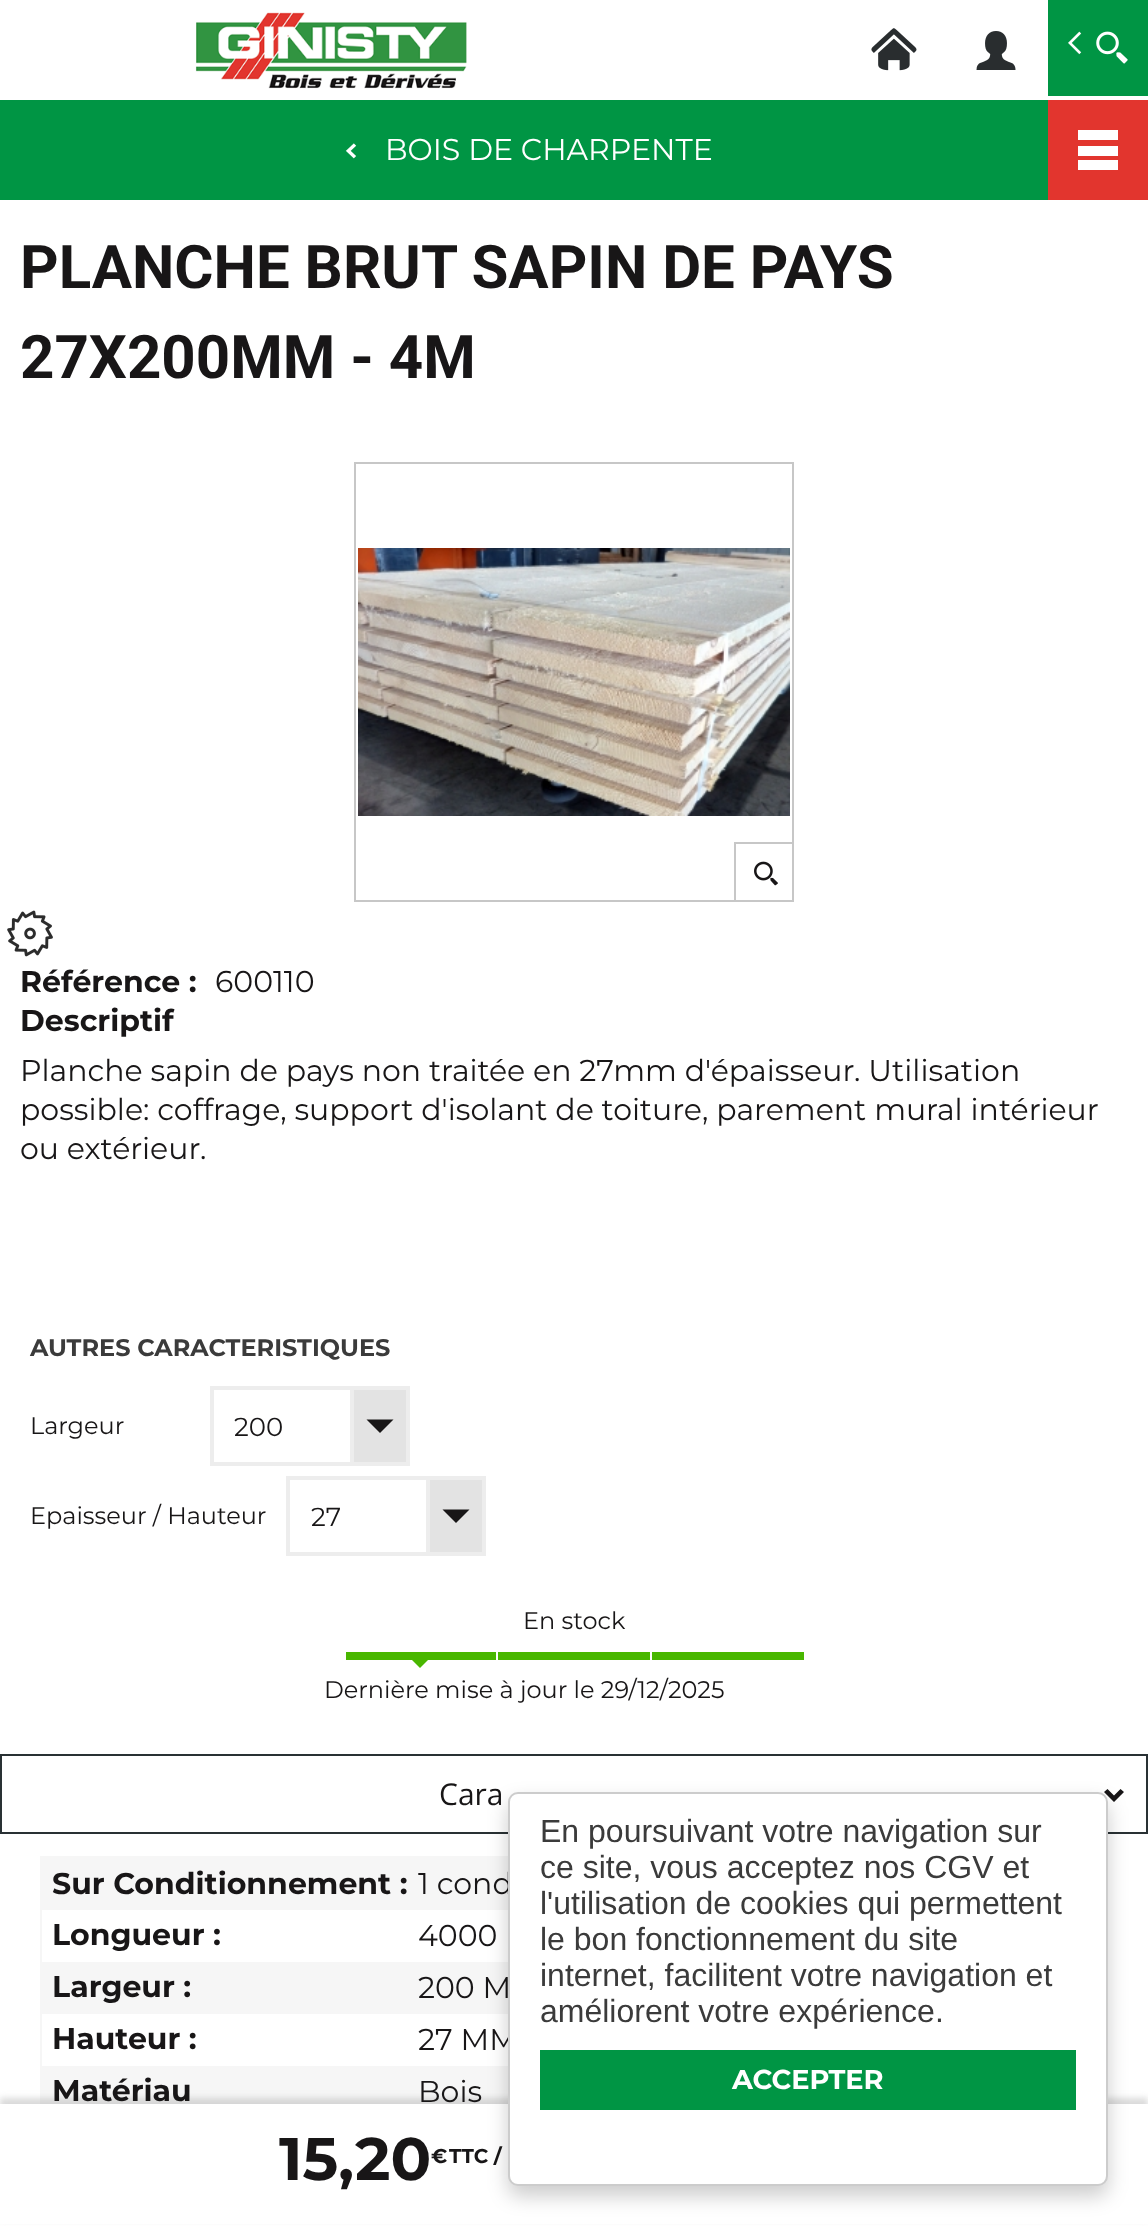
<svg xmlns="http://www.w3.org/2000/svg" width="1148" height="2226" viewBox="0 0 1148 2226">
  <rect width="100%" height="100%" fill="rgb(255,255,255)"/>
  <image x="195" y="12" width="272" height="77" href="pic1.png"/>
  <image x="871" y="28" width="46" height="43" href="pic2.png"/>
  <image x="976" y="31" width="40" height="39" href="pic3.png"/>
  <rect x="1048" y="0" width="100" height="96" fill="rgb(0,149,68)"/>
  <image x="1068" y="31" width="60" height="33" href="pic4.png"/>
  <rect x="0" y="100" width="1048" height="100" fill="rgb(0,149,68)"/>
  <image x="345" y="143" width="12" height="16" href="pic5.png"/>
  <text x="385" y="160" font-family="Montserrat" font-size="30" fill="rgb(255,255,255)">BOIS DE CHARPENTE</text>
  <rect x="1048" y="100" width="100" height="100" fill="rgb(226,53,46)"/>
  <path d="M1078 130H1118V140H1078ZM1078 146H1118V156H1078ZM1078 170V160H1118V170Z" fill="rgb(255,255,255)"/>
  <g font-family="Roboto" font-size="60" font-weight="bold" fill="rgb(24,22,23)">
    <text>
      <tspan x="20" y="288">PLANCHE BRUT SAPIN DE PAYS</tspan>
      <tspan x="20" y="378">27X200MM - 4M</tspan>
    </text>
  </g>
  <rect x="355" y="463" width="438" height="438" fill="none" stroke="rgb(199,199,199)" stroke-width="2"/>
  <image x="358" y="548" width="432" height="268" href="pic6.png"/>
  <rect x="734" y="842" width="60" height="2" fill="rgb(199,199,199)"/>
  <rect x="734" y="842" width="2" height="60" fill="rgb(199,199,199)"/>
  <image x="754" y="861" width="24" height="25" href="pic7.png"/>
  <image x="7" y="910" width="46" height="47" href="pic8.png"/>
  <text x="20" y="992" font-family="Montserrat" font-size="30" font-weight="bold" fill="rgb(24,22,23)">Référence :</text>
  <text x="215" y="992" font-family="Montserrat" font-size="30" fill="rgb(24,22,23)">600110</text>
  <text x="20" y="1031" font-family="Montserrat" font-size="30" font-weight="bold" fill="rgb(24,22,23)">Descriptif</text>
  <g font-family="Montserrat" font-size="30" fill="rgb(24,22,23)">
    <text>
      <tspan x="20" y="1081">Planche sapin de pays non traitée en 27mm d'épaisseur. Utilisation</tspan>
      <tspan x="20" y="1120">possible: coffrage, support d'isolant de toiture, parement mural intérieur</tspan>
      <tspan x="20" y="1159">ou extérieur.</tspan>
    </text>
  </g>
  <text x="30" y="1356" font-family="Montserrat" font-size="24" font-weight="bold" fill="rgb(59,59,59)">AUTRES CARACTERISTIQUES</text>
  <text x="30" y="1434" font-family="Montserrat" font-size="24" fill="rgb(24,22,23)">Largeur</text>
  <rect x="352" y="1388" width="56" height="76" fill="rgb(227,227,227)" stroke="rgb(237,237,237)" stroke-width="4"/>
  <path d="M366.5 1419.5L380 1433L393.5 1419.5Z" fill="rgb(24,22,23)"/>
  <rect x="212" y="1388" width="196" height="76" fill="none" stroke="rgb(237,237,237)" stroke-width="4"/>
  <text x="234" y="1436" font-family="Montserrat" font-size="26" fill="rgb(24,22,23)">200</text>
  <text x="30" y="1524" font-family="Montserrat" font-size="24" fill="rgb(24,22,23)">Epaisseur / Hauteur</text>
  <rect x="428" y="1478" width="56" height="76" fill="rgb(227,227,227)" stroke="rgb(237,237,237)" stroke-width="4"/>
  <path d="M442.5 1509.5L456 1523L469.5 1509.5Z" fill="rgb(24,22,23)"/>
  <rect x="288" y="1478" width="196" height="76" fill="none" stroke="rgb(237,237,237)" stroke-width="4"/>
  <text x="311" y="1526" font-family="Montserrat" font-size="26" fill="rgb(24,22,23)">27</text>
  <text x="523" y="1629" font-family="Montserrat" font-size="24" fill="rgb(24,22,23)">En stock</text>
  <rect x="346" y="1652" width="150" height="8" fill="rgb(73,183,0)"/>
  <path d="M412 1660H428L420 1668Z" fill="rgb(73,183,0)"/>
  <rect x="498" y="1652" width="152" height="8" fill="rgb(73,183,0)"/>
  <rect x="652" y="1652" width="152" height="8" fill="rgb(73,183,0)"/>
  <text x="324" y="1698" font-family="Montserrat" font-size="24" fill="rgb(24,22,23)">Dernière mise à jour le 29/12/2025</text>
  <rect x="40" y="1856" width="468" height="2" fill="rgb(246,246,246)"/>
  <rect x="40" y="1856" width="2" height="248" fill="rgb(246,246,246)"/>
  <rect x="42" y="2066" width="466" height="38" fill="rgb(246,246,246)"/>
  <rect x="0" y="2098" width="1148" height="122" fill="rgba(182,182,182,0.5)" filter="blur(3px)"/>
  <rect x="0" y="2104" width="1148" height="120" fill="rgb(255,255,255)"/>
  <g font-family="Montserrat" font-size="60" font-weight="bold" fill="rgb(24,22,23)">
    <text x="279" y="2180">15,</text>
    <text x="355" y="2180">20</text>
  </g>
  <g font-family="Montserrat" font-size="20" font-weight="bold" fill="rgb(24,22,23)">
    <text x="431" y="2163">€</text>
    <text x="449" y="2163">TTC /</text>
  </g>
  <rect x="1" y="1755" width="1146" height="78" fill="none" stroke="rgb(41,49,52)" stroke-width="2"/>
  <text x="439" y="1805" font-family="Open Sans" font-size="30" fill="rgb(24,22,23)">Cara</text>
  <path d="M1120.5 1789L1124 1792L1114 1802L1104 1792L1107.5 1789L1114 1795.5Z" fill="rgb(24,22,23)"/>
  <rect x="42" y="1858" width="466" height="52" fill="rgb(246,246,246)"/>
  <text x="52" y="1894" font-family="Montserrat" font-size="30" font-weight="bold" fill="rgb(24,22,23)">Sur Conditionnement :</text>
  <text x="418" y="1894" font-family="Montserrat" font-size="30" fill="rgb(24,22,23)">1 cond</text>
  <text x="52" y="1945" font-family="Montserrat" font-size="30" font-weight="bold" fill="rgb(24,22,23)">Longueur :</text>
  <text x="418" y="1946" font-family="Montserrat" font-size="30" fill="rgb(24,22,23)">4000</text>
  <rect x="42" y="1962" width="466" height="52" fill="rgb(246,246,246)"/>
  <text x="52" y="1997" font-family="Montserrat" font-size="30" font-weight="bold" fill="rgb(24,22,23)">Largeur :</text>
  <text x="418" y="1998" font-family="Montserrat" font-size="30" fill="rgb(24,22,23)">200 M</text>
  <text x="52" y="2049" font-family="Montserrat" font-size="30" font-weight="bold" fill="rgb(24,22,23)">Hauteur :</text>
  <text x="418" y="2050" font-family="Montserrat" font-size="30" fill="rgb(24,22,23)">27 MM</text>
  <text x="52" y="2101" font-family="Montserrat" font-size="30" font-weight="bold" fill="rgb(24,22,23)">Matériau</text>
  <text x="418" y="2102" font-family="Montserrat" font-size="30" fill="rgb(24,22,23)">Bois</text>
  <rect x="508" y="1802" width="600" height="394" rx="10" fill="rgba(0,0,0,0.2)" filter="blur(10px)"/>
  <rect x="509" y="1793" width="598" height="392" rx="9" fill="rgb(255,255,255)" stroke="rgb(204,204,204)" stroke-width="2"/>
  <g font-family="Liberation Sans" font-size="32" fill="rgb(59,59,59)">
    <text>
      <tspan x="540" y="1842">En poursuivant votre navigation sur</tspan>
      <tspan x="540" y="1878">ce site, vous acceptez nos CGV et</tspan>
      <tspan x="540" y="1914">l'utilisation de cookies qui permettent</tspan>
      <tspan x="540" y="1950">le bon fonctionnement du site</tspan>
      <tspan x="540" y="1986">internet, facilitent votre navigation et</tspan>
      <tspan x="540" y="2022">améliorent votre expérience.</tspan>
    </text>
  </g>
  <rect x="540" y="2050" width="536" height="60" fill="rgb(0,149,68)"/>
  <text x="732" y="2089" font-family="Montserrat" font-size="27.25" font-weight="bold" fill="rgb(255,255,255)">ACCEPTER</text>
</svg>
